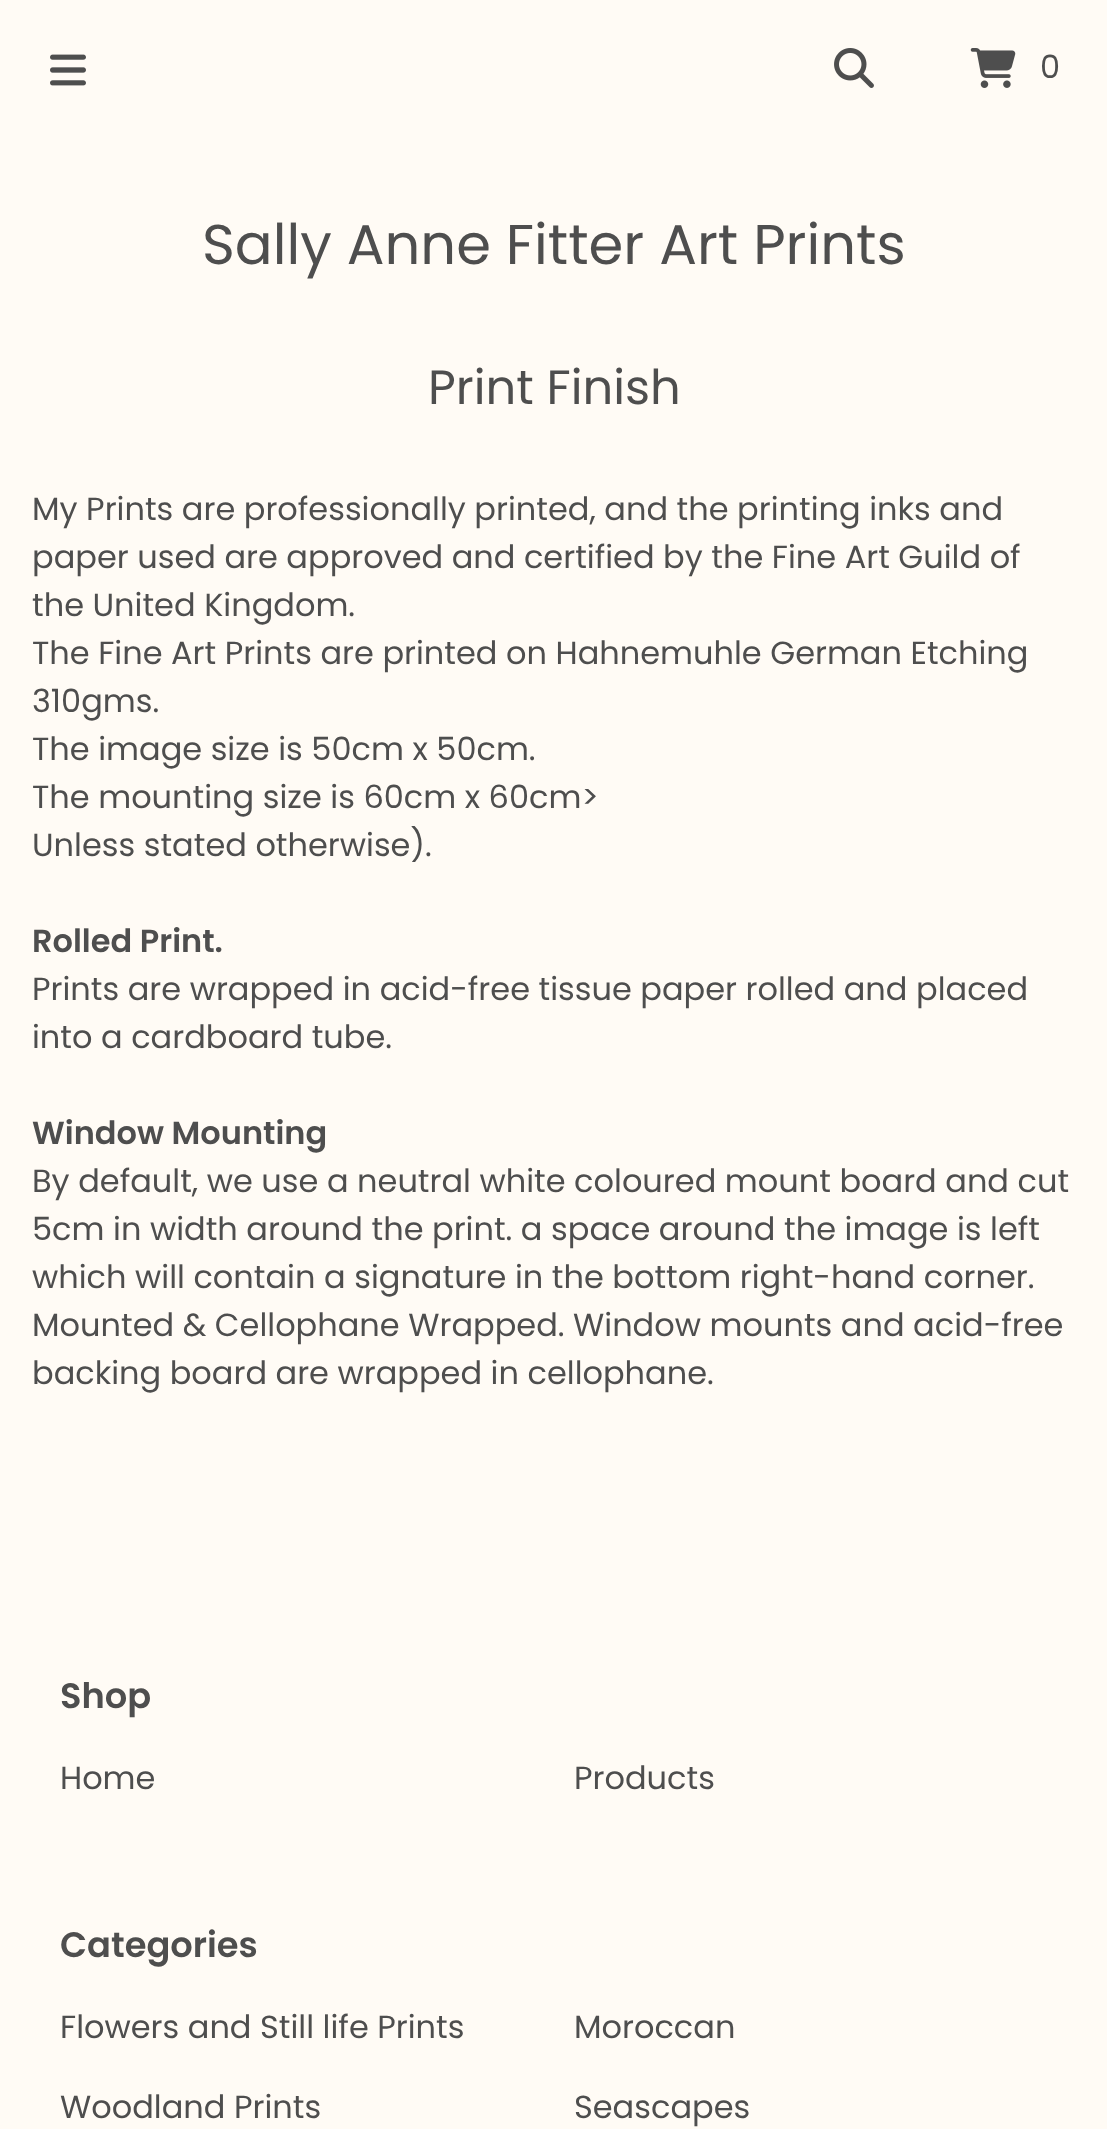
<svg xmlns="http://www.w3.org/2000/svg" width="1107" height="2129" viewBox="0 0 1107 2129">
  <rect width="100%" height="100%" fill="rgb(255,251,245)"/>
  <image x="50" y="54" width="36" height="32" href="pic1.png"/>
  <image x="834" y="48" width="40" height="40" href="pic2.png"/>
  <image x="970" y="48" width="46" height="40" href="pic3.png"/>
  <text x="1040" y="78" font-family="Poppins" font-size="32" fill="rgb(78,78,78)">0</text>
  <text x="202" y="264" font-family="Poppins" font-size="56" fill="rgb(78,78,78)">Sally Anne Fitter Art Prints</text>
  <text x="428" y="404" font-family="Poppins" font-size="48" fill="rgb(78,78,78)">Print Finish</text>
  <g font-family="Poppins" font-size="32" fill="rgb(78,78,78)">
    <text>
      <tspan x="32" y="520">My Prints are professionally printed, and the printing inks and</tspan>
      <tspan x="32" y="568">paper used are approved and certified by the Fine Art Guild of</tspan>
      <tspan x="32" y="616">the United Kingdom.</tspan>
      <tspan x="32" y="664">The Fine Art Prints are printed on Hahnemuhle German Etching</tspan>
      <tspan x="32" y="712">310gms.</tspan>
      <tspan x="32" y="760">The image size is 50cm x 50cm.</tspan>
      <tspan x="32" y="808">The mounting size is 60cm x 60cm&gt;</tspan>
      <tspan x="32" y="856">Unless stated otherwise).</tspan>
    </text>
  </g>
  <text x="32" y="952" font-family="Poppins" font-size="32" font-weight="600" fill="rgb(78,78,78)">Rolled Print.</text>
  <g font-family="Poppins" font-size="32" fill="rgb(78,78,78)">
    <text>
      <tspan x="32" y="1000">Prints are wrapped in acid-free tissue paper rolled and placed</tspan>
      <tspan x="32" y="1048">into a cardboard tube.</tspan>
    </text>
  </g>
  <text x="32" y="1144" font-family="Poppins" font-size="32" font-weight="600" fill="rgb(78,78,78)">Window Mounting</text>
  <g font-family="Poppins" font-size="32" fill="rgb(78,78,78)">
    <text>
      <tspan x="32" y="1192">By default, we use a neutral white coloured mount board and cut</tspan>
      <tspan x="32" y="1240">5cm in width around the print. a space around the image is left</tspan>
      <tspan x="32" y="1288">which will contain a signature in the bottom right-hand corner.</tspan>
      <tspan x="32" y="1336">Mounted &amp; Cellophane Wrapped. Window mounts and acid-free</tspan>
      <tspan x="32" y="1384">backing board are wrapped in cellophane.</tspan>
    </text>
  </g>
  <text x="60" y="1708" font-family="Poppins" font-size="35.25" font-weight="600" fill="rgb(78,78,78)">Shop</text>
  <g font-family="Poppins" font-size="32" fill="rgb(78,78,78)">
    <text x="60" y="1789">Home</text>
    <text x="574" y="1789">Products</text>
  </g>
  <text x="60" y="1957" font-family="Poppins" font-size="35.25" font-weight="600" fill="rgb(78,78,78)">Categories</text>
  <g font-family="Poppins" font-size="32" fill="rgb(78,78,78)">
    <text x="60" y="2038">Flowers and Still life Prints</text>
    <text x="574" y="2038">Moroccan</text>
    <text x="60" y="2118">Woodland Prints</text>
    <text x="574" y="2118">Seascapes</text>
  </g>
</svg>
